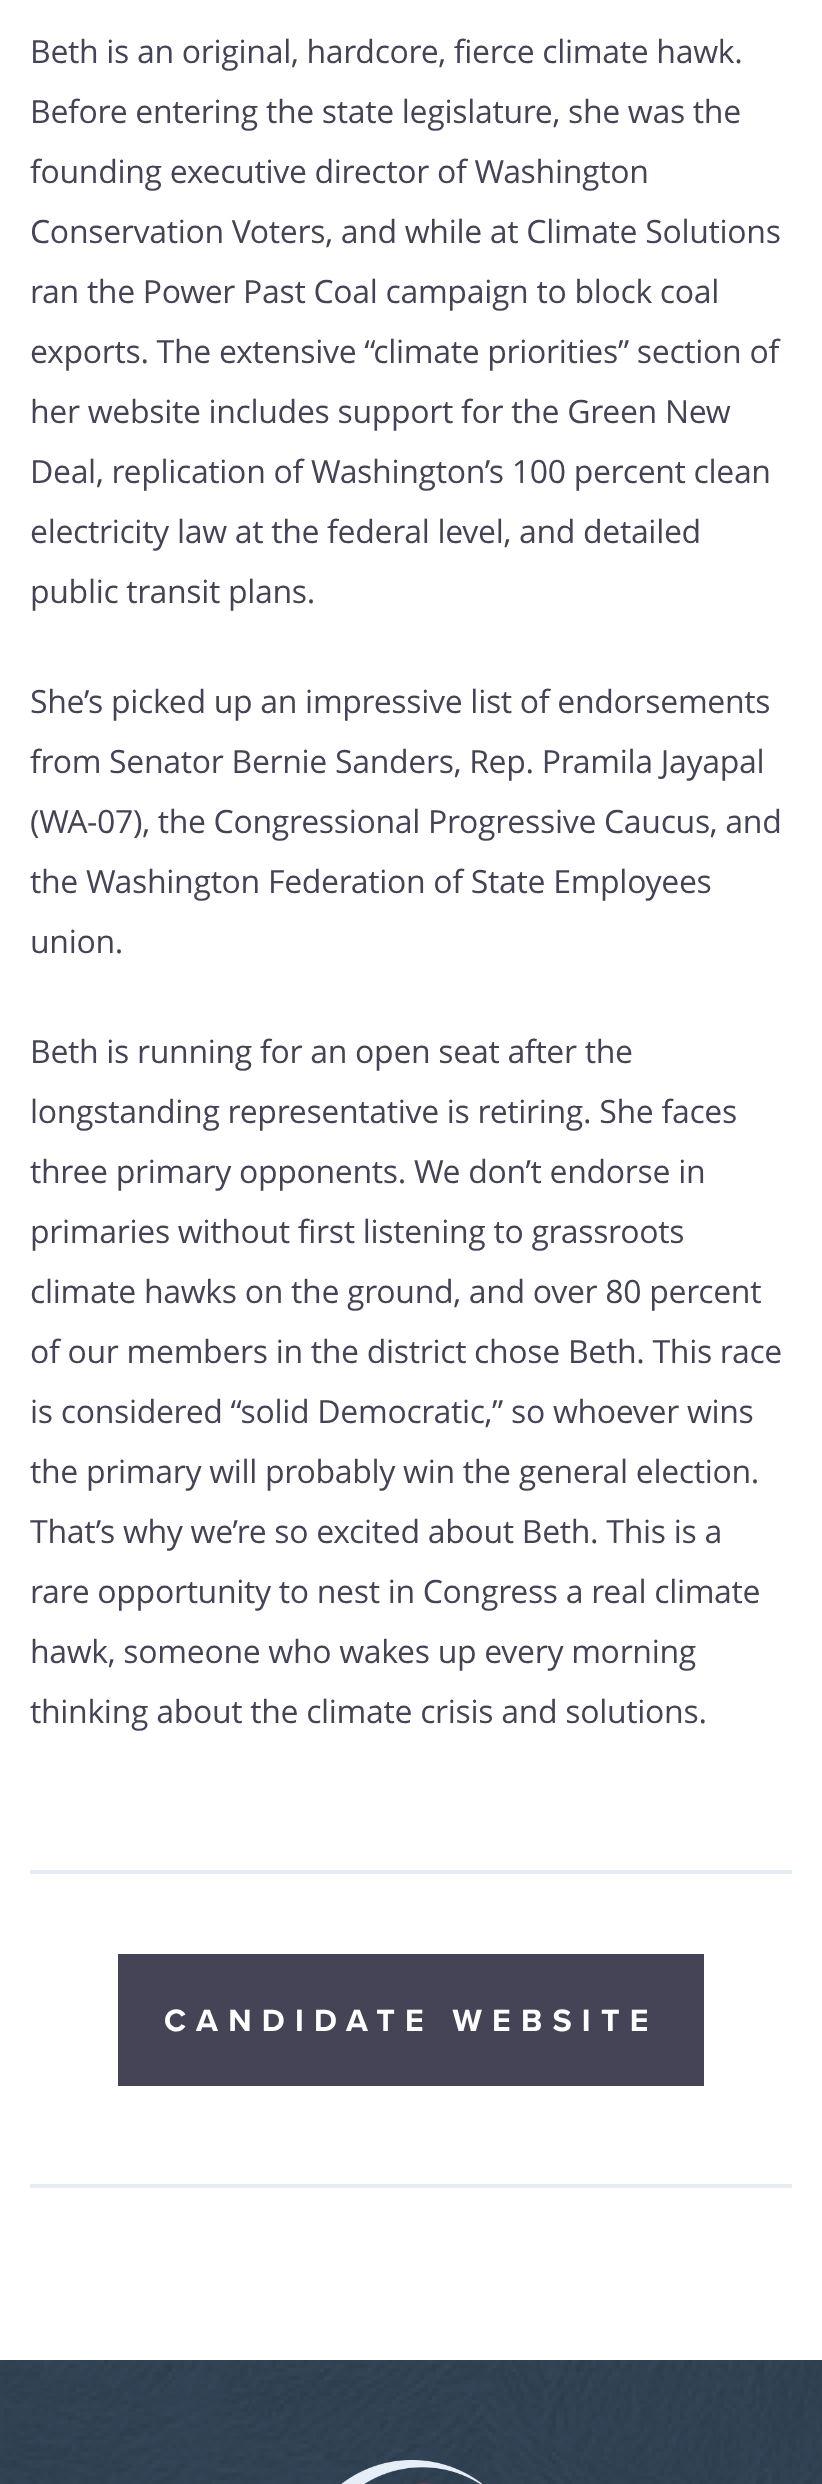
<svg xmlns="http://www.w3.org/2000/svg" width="822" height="2484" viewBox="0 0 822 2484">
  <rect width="100%" height="100%" fill="rgb(255,255,255)"/>
  <g font-family="Open Sans" font-size="32" letter-spacing="-0.32" fill="rgb(68,68,86)">
    <text>
      <tspan x="30" y="63">Beth is an original, hardcore, fierce climate hawk.</tspan>
      <tspan x="30" y="123">Before entering the state legislature, she was the</tspan>
      <tspan x="30" y="183">founding executive director of Washington</tspan>
      <tspan x="30" y="243">Conservation Voters, and while at Climate Solutions</tspan>
      <tspan x="30" y="303">ran the Power Past Coal campaign to block coal</tspan>
      <tspan x="30" y="363">exports. The extensive “climate priorities” section of</tspan>
      <tspan x="30" y="423">her website includes support for the Green New</tspan>
      <tspan x="30" y="483">Deal, replication of Washington’s 100 percent clean</tspan>
      <tspan x="30" y="543">electricity law at the federal level, and detailed</tspan>
      <tspan x="30" y="603">public transit plans.</tspan>
    </text>
    <text>
      <tspan x="30" y="713">She’s picked up an impressive list of endorsements</tspan>
      <tspan x="30" y="773">from Senator Bernie Sanders, Rep. Pramila Jayapal</tspan>
      <tspan x="30" y="833">(WA-07), the Congressional Progressive Caucus, and</tspan>
      <tspan x="30" y="893">the Washington Federation of State Employees</tspan>
      <tspan x="30" y="953">union.</tspan>
    </text>
    <text>
      <tspan x="30" y="1063">Beth is running for an open seat after the</tspan>
      <tspan x="30" y="1123">longstanding representative is retiring. She faces</tspan>
      <tspan x="30" y="1183">three primary opponents. We don’t endorse in</tspan>
      <tspan x="30" y="1243">primaries without first listening to grassroots</tspan>
      <tspan x="30" y="1303">climate hawks on the ground, and over 80 percent</tspan>
      <tspan x="30" y="1363">of our members in the district chose Beth. This race</tspan>
      <tspan x="30" y="1423">is considered “solid Democratic,” so whoever wins</tspan>
      <tspan x="30" y="1483">the primary will probably win the general election.</tspan>
      <tspan x="30" y="1543">That’s why we’re so excited about Beth. This is a</tspan>
      <tspan x="30" y="1603">rare opportunity to nest in Congress a real climate</tspan>
      <tspan x="30" y="1663">hawk, someone who wakes up every morning</tspan>
      <tspan x="30" y="1723">thinking about the climate crisis and solutions.</tspan>
    </text>
  </g>
  <rect x="30" y="1870" width="762" height="4" fill="rgb(229,236,244)"/>
  <rect x="118" y="1954" width="586" height="132" fill="rgb(68,68,86)"/>
  <text x="164" y="2031" font-family="Proxima Nova" font-size="32" font-weight="bold" letter-spacing="10.25" fill="rgb(255,255,255)">CANDIDATE WEBSITE</text>
  <rect x="30" y="2184" width="762" height="4" fill="rgb(229,236,244)"/>
  <image x="0" y="2360" width="822" height="124" href="pic1.png"/>
  <image x="341" y="2460" width="141" height="24" href="pic2.png"/>
</svg>
